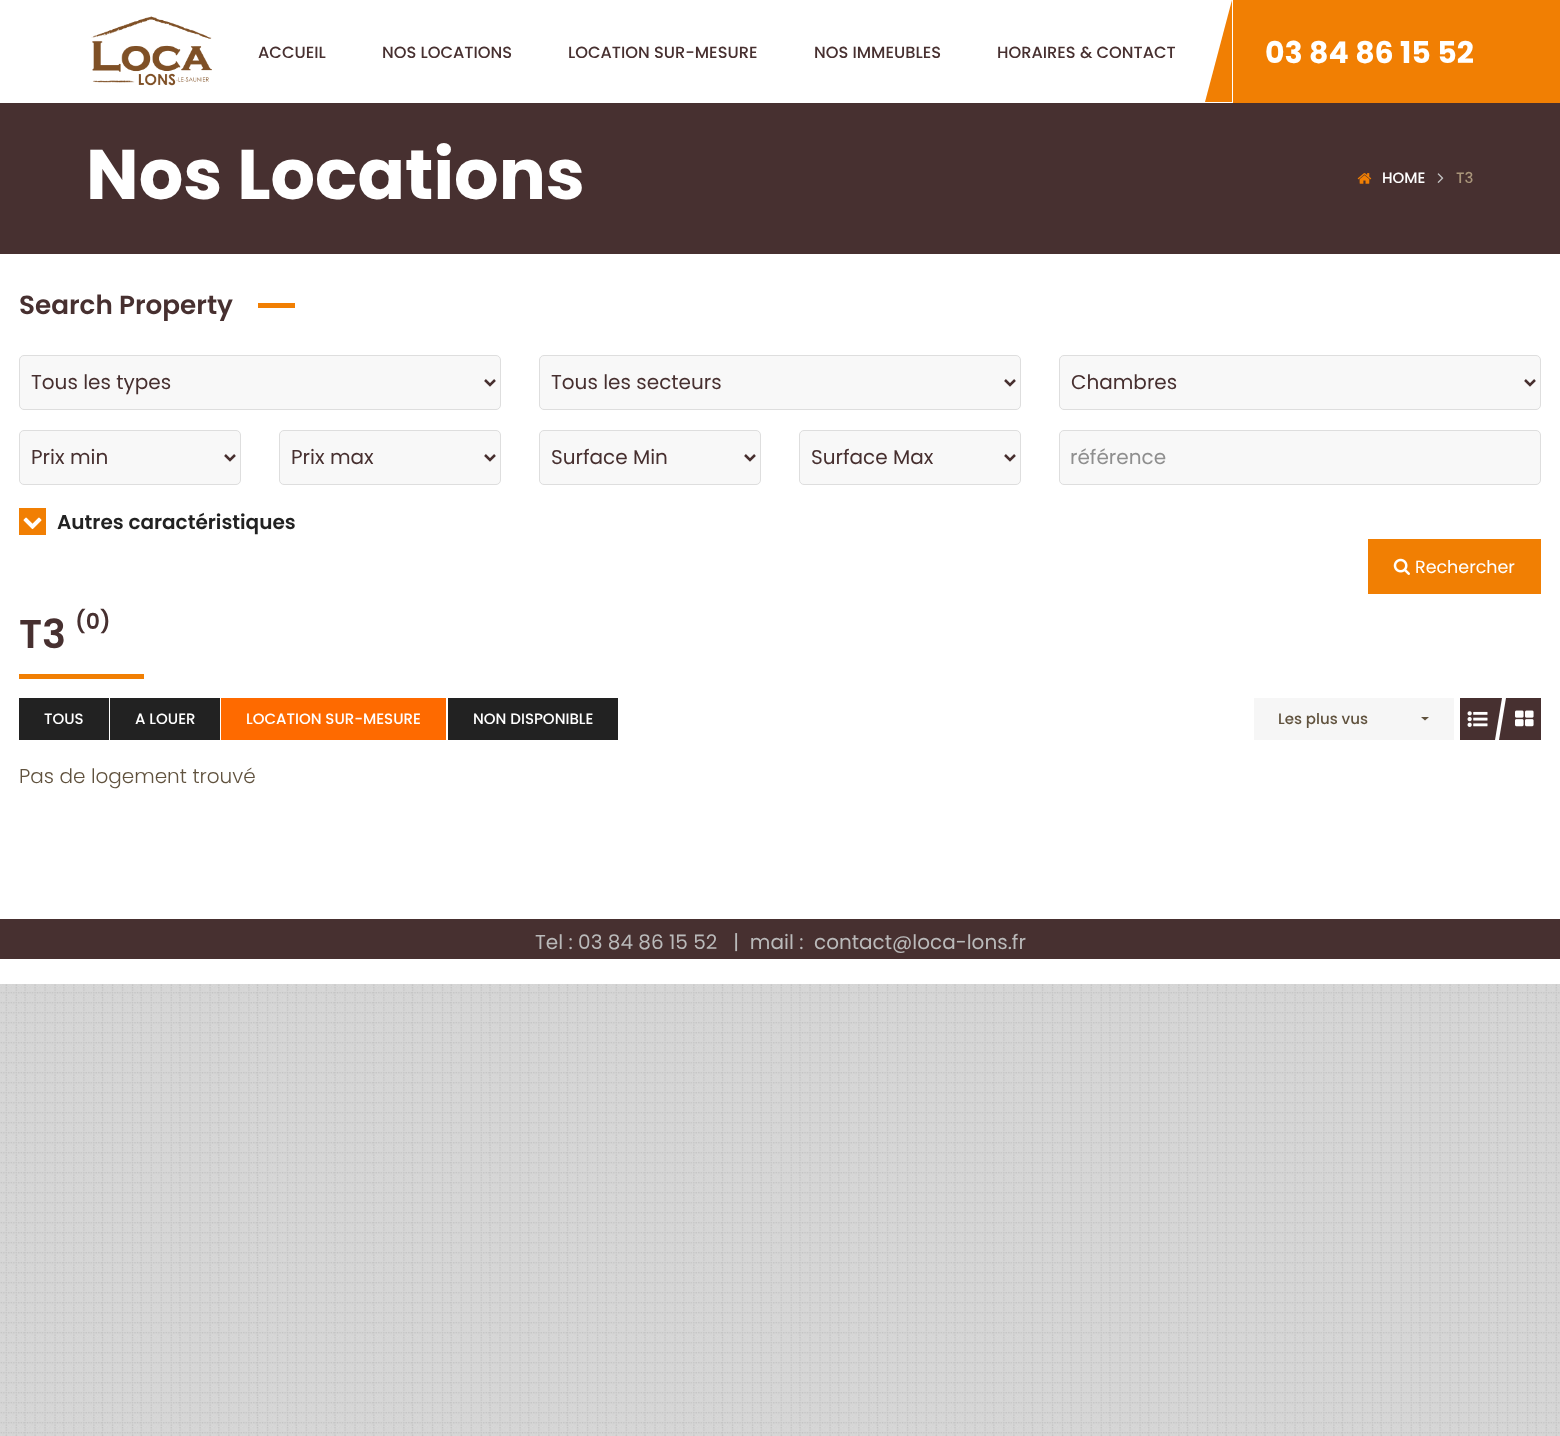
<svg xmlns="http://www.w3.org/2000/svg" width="1560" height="1436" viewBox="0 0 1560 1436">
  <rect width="100%" height="100%" fill="rgb(255,255,255)"/>
  <image x="0" y="984" width="1560" height="452" href="pic1.png"/>
  <image x="91" y="16" width="121" height="70" href="pic2.png"/>
  <g font-family="Poppins" font-size="16.25" font-weight="500" fill="rgb(71,48,48)">
    <text x="258" y="58">ACCUEIL</text>
    <text x="382" y="58">NOS LOCATIONS</text>
    <text x="568" y="58">LOCATION SUR-MESURE</text>
    <text x="814" y="58">NOS IMMEUBLES</text>
    <text x="997" y="58">HORAIRES &amp; CONTACT</text>
  </g>
  <rect x="1233" y="0" width="327" height="103" fill="rgb(241,127,3)"/>
  <path d="M1232 102H1205L1232 0Z" fill="rgb(241,127,3)"/>
  <text x="1265" y="63" font-family="Poppins" font-size="30" font-weight="bold" fill="rgb(255,255,255)">03 84 86 15 52</text>
  <rect x="0" y="103" width="1560" height="151" fill="rgb(71,48,48)"/>
  <text x="86" y="199" font-family="Poppins" font-size="70" font-weight="bold" fill="rgb(255,255,255)">Nos Locations</text>
  <image x="1357" y="173" width="15" height="11" href="pic3.png"/>
  <text x="1382" y="183" font-family="Poppins" font-size="15" font-weight="500" fill="rgb(255,255,255)">HOME</text>
  <image x="1437" y="173" width="7" height="10" href="pic4.png"/>
  <text x="1456" y="183" font-family="Poppins" font-size="15" font-weight="500" fill="rgb(169,149,122)">T3</text>
  <text x="19" y="314" font-family="Poppins" font-size="26.25" font-weight="600" fill="rgb(71,48,48)">Search Property</text>
  <rect x="258" y="303" width="37" height="5" fill="rgb(241,127,3)"/>
  <rect x="19.5" y="355.5" width="481" height="54" rx="4.5" fill="rgb(248,248,248)" stroke="rgb(222,222,222)"/>
  <path d="M485 380L490 385L495 380" fill="none" stroke="rgb(71,48,48)" stroke-width="2.5"/>
  <text x="31" y="389" font-family="Poppins" font-size="20" fill="rgb(71,48,48)">Tous les types</text>
  <rect x="539.5" y="355.5" width="481" height="54" rx="4.5" fill="rgb(248,248,248)" stroke="rgb(222,222,222)"/>
  <path d="M1005 380L1010 385L1015 380" fill="none" stroke="rgb(71,48,48)" stroke-width="2.5"/>
  <text x="551" y="389" font-family="Poppins" font-size="20" fill="rgb(71,48,48)">Tous les secteurs</text>
  <rect x="1059.5" y="355.5" width="481" height="54" rx="4.5" fill="rgb(248,248,248)" stroke="rgb(222,222,222)"/>
  <path d="M1525 380L1530 385L1535 380" fill="none" stroke="rgb(71,48,48)" stroke-width="2.5"/>
  <text x="1071" y="389" font-family="Poppins" font-size="20" fill="rgb(71,48,48)">Chambres</text>
  <rect x="19.5" y="430.5" width="221" height="54" rx="4.5" fill="rgb(248,248,248)" stroke="rgb(222,222,222)"/>
  <path d="M225 455L230 460L235 455" fill="none" stroke="rgb(71,48,48)" stroke-width="2.5"/>
  <text x="31" y="464" font-family="Poppins" font-size="20" fill="rgb(71,48,48)">Prix min</text>
  <rect x="279.5" y="430.5" width="221" height="54" rx="4.5" fill="rgb(248,248,248)" stroke="rgb(222,222,222)"/>
  <path d="M485 455L490 460L495 455" fill="none" stroke="rgb(71,48,48)" stroke-width="2.5"/>
  <text x="291" y="464" font-family="Poppins" font-size="20" fill="rgb(71,48,48)">Prix max</text>
  <rect x="539.5" y="430.5" width="221" height="54" rx="4.5" fill="rgb(248,248,248)" stroke="rgb(222,222,222)"/>
  <path d="M745 455L750 460L755 455" fill="none" stroke="rgb(71,48,48)" stroke-width="2.5"/>
  <text x="551" y="464" font-family="Poppins" font-size="20" fill="rgb(71,48,48)">Surface Min</text>
  <rect x="799.5" y="430.5" width="221" height="54" rx="4.5" fill="rgb(248,248,248)" stroke="rgb(222,222,222)"/>
  <path d="M1005 455L1010 460L1015 455" fill="none" stroke="rgb(71,48,48)" stroke-width="2.5"/>
  <text x="811" y="464" font-family="Poppins" font-size="20" fill="rgb(71,48,48)">Surface Max</text>
  <rect x="1059.5" y="430.5" width="481" height="54" rx="4.5" fill="rgb(248,248,248)" stroke="rgb(222,222,222)"/>
  <text x="1070" y="464" font-family="Poppins" font-size="20" fill="rgb(143,143,143)">référence</text>
  <rect x="19" y="508" width="27" height="27" fill="rgb(241,127,3)"/>
  <image x="23" y="517" width="19" height="13" href="pic5.png"/>
  <text x="57" y="529" font-family="Poppins" font-size="20" font-weight="600" fill="rgb(34,34,34)">Autres caractéristiques</text>
  <rect x="1368" y="539" width="173" height="55" fill="rgb(241,127,3)"/>
  <image x="1393" y="558" width="17" height="17" href="pic6.png"/>
  <text x="1415" y="573" font-family="Poppins" font-size="17.5" fill="rgb(255,255,255)">Rechercher</text>
  <text x="19" y="648" font-family="Poppins" font-size="40" font-weight="600" fill="rgb(71,48,48)">T3</text>
  <text x="75" y="629" font-family="Poppins" font-size="22" font-weight="600" fill="rgb(71,48,48)">(0)</text>
  <rect x="19" y="674" width="125" height="5" fill="rgb(241,127,3)"/>
  <rect x="19" y="698" width="90" height="42" fill="rgb(34,34,34)"/>
  <text x="44" y="724" font-family="Poppins" font-size="15" font-weight="500" fill="rgb(255,255,255)">TOUS</text>
  <rect x="110" y="698" width="110" height="42" fill="rgb(34,34,34)"/>
  <text x="135" y="724" font-family="Poppins" font-size="15" font-weight="500" fill="rgb(255,255,255)">A LOUER</text>
  <rect x="221" y="698" width="225" height="42" fill="rgb(254,106,0)"/>
  <text x="246" y="724" font-family="Poppins" font-size="15" font-weight="500" fill="rgb(255,255,255)">LOCATION SUR-MESURE</text>
  <rect x="448" y="698" width="170" height="42" fill="rgb(34,34,34)"/>
  <text x="473" y="724" font-family="Poppins" font-size="15" font-weight="500" fill="rgb(255,255,255)">NON DISPONIBLE</text>
  <rect x="1254" y="698" width="200" height="42" fill="rgb(246,246,246)"/>
  <text x="1278" y="724" font-family="Poppins" font-size="15" font-weight="500" fill="rgb(96,82,62)">Les plus vus</text>
  <path d="M1421 717H1429L1425 720.5Z" fill="rgb(96,82,62)"/>
  <rect x="1460" y="698" width="35" height="42" fill="rgb(71,48,48)"/>
  <image x="1467" y="711" width="21" height="16" href="pic7.png"/>
  <path d="M1495 698H1502L1495 740Z" fill="rgb(71,48,48)"/>
  <rect x="1506" y="698" width="35" height="42" fill="rgb(71,48,48)"/>
  <path d="M1506 740H1499L1506 698Z" fill="rgb(71,48,48)"/>
  <image x="1515" y="710" width="19" height="17" href="pic8.png"/>
  <text x="19" y="783" font-family="Poppins" font-size="20" font-weight="300" fill="rgb(96,82,62)">Pas de logement trouvé</text>
  <rect x="0" y="919" width="1560" height="40" fill="rgb(71,48,48)"/>
  <text x="535" y="949" font-family="Poppins" font-size="20" fill="rgb(186,186,186)" xml:space="preserve">Tel : 03 84 86 15 52   |  mail :  contact@loca-lons.fr</text>
</svg>
